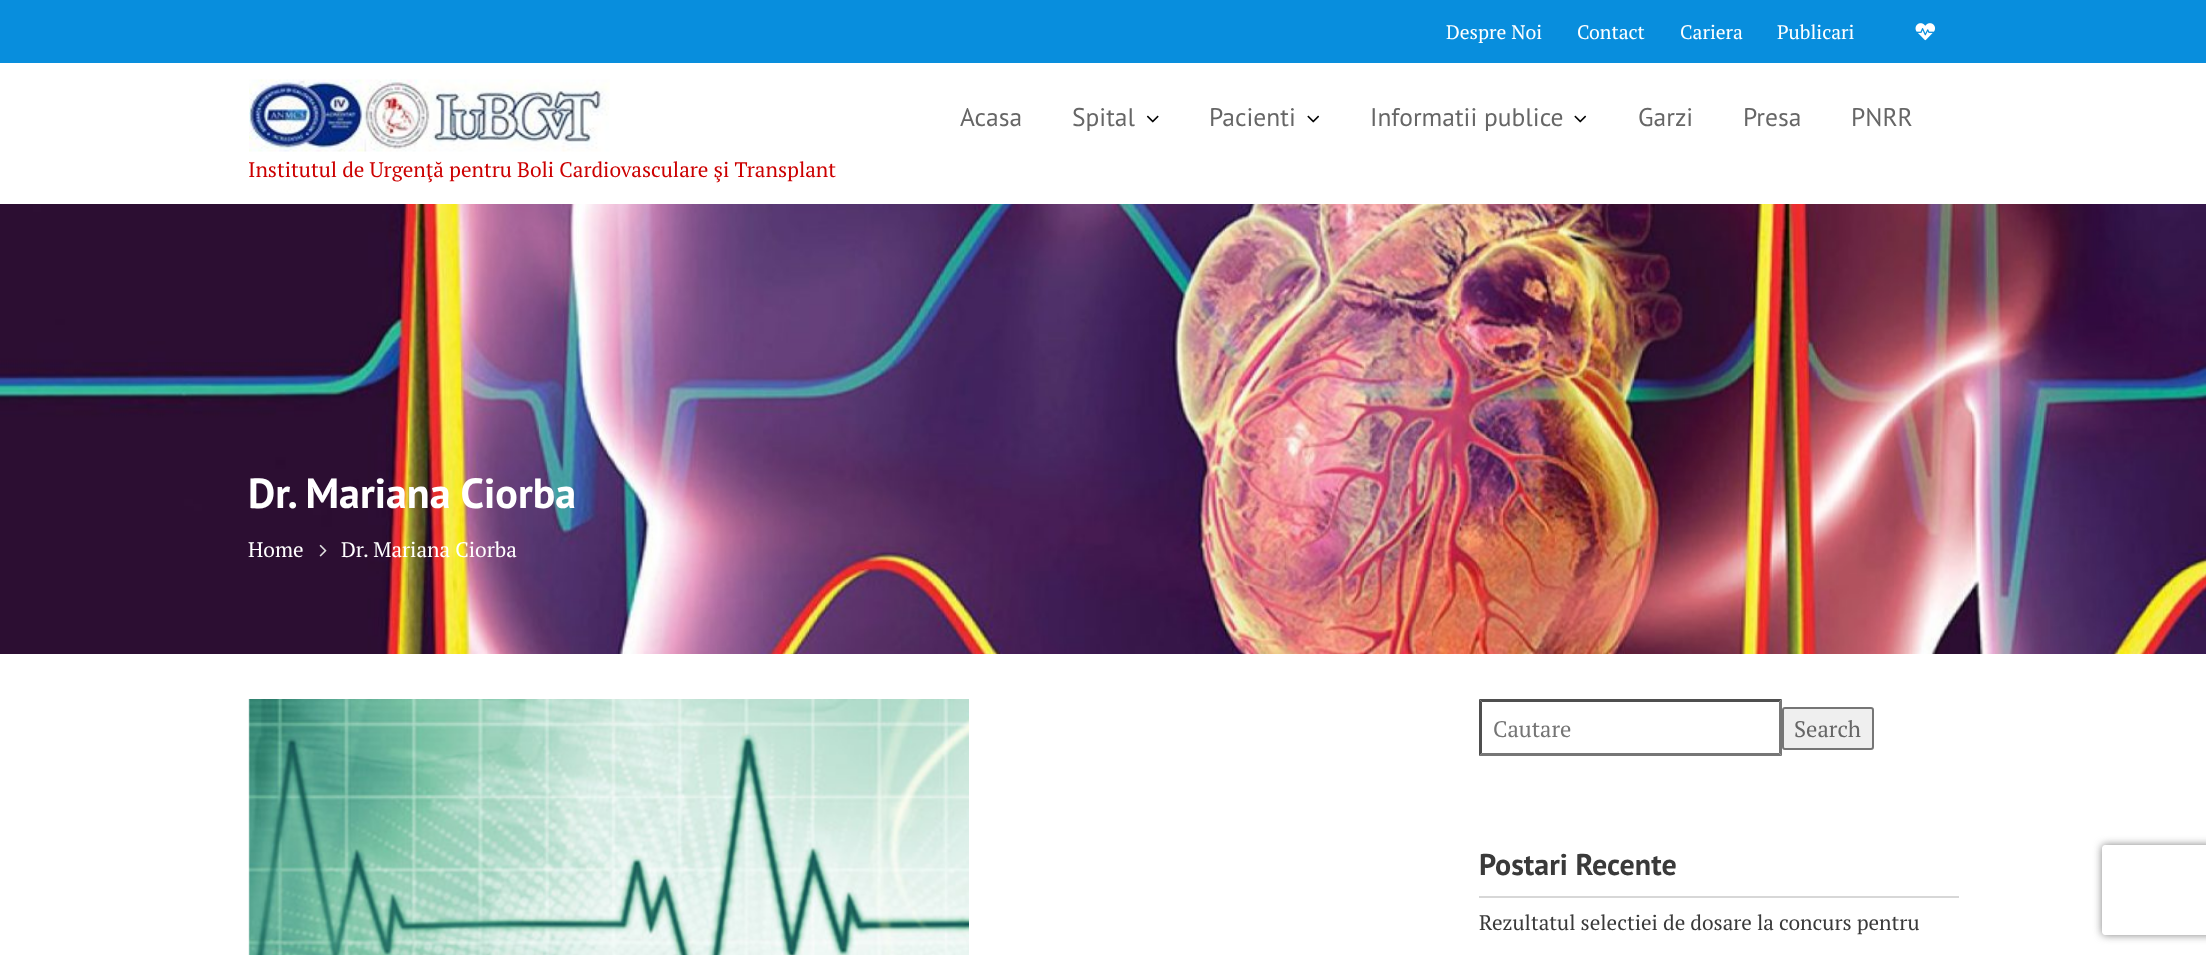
<svg xmlns="http://www.w3.org/2000/svg" width="2206" height="955" viewBox="0 0 2206 955">
  <defs>
    <clipPath id="clip1"><path d="M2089 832H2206V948H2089ZM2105 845H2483C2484.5 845 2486 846.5 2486 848V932C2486 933.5 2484.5 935 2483 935H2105C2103.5 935 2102 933.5 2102 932V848C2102 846.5 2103.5 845 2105 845Z" clip-rule="evenodd"/></clipPath>
  </defs>
  <rect width="100%" height="100%" fill="rgb(255,255,255)"/>
  <rect x="0" y="0" width="2206" height="63" fill="rgb(8,142,221)"/>
  <g font-family="PT Serif" font-size="19.5" fill="rgb(255,255,255)">
    <text x="1446" y="39">Despre Noi</text>
    <text x="1577" y="39">Contact</text>
    <text x="1680" y="39">Cariera</text>
    <text x="1777" y="39">Publicari</text>
  </g>
  <image x="1915" y="23" width="20" height="18" href="pic1.png"/>
  <g font-family="PT Sans" font-size="25.5" fill="rgb(102,102,102)">
    <text x="960" y="126">Acasa</text>
    <text x="1072" y="126">Spital</text>
  </g>
  <image x="1146" y="115" width="13" height="8" href="pic2.png"/>
  <text x="1209" y="126" font-family="PT Sans" font-size="25.5" fill="rgb(102,102,102)">Pacienti</text>
  <image x="1307" y="115" width="13" height="8" href="pic3.png"/>
  <text x="1370" y="126" font-family="PT Sans" font-size="25.5" fill="rgb(102,102,102)">Informatii publice</text>
  <image x="1574" y="115" width="13" height="8" href="pic3.png"/>
  <g font-family="PT Sans" font-size="25.5" fill="rgb(102,102,102)">
    <text x="1638" y="126">Garzi</text>
    <text x="1743" y="126">Presa</text>
    <text x="1851" y="126">PNRR</text>
  </g>
  <image x="249" y="79" width="361" height="73" href="pic4.png"/>
  <text x="248" y="177" font-family="PT Serif" font-size="21" fill="rgb(204,0,0)">Institutul de Urgenţă pentru Boli Cardiovasculare şi Transplant</text>
  <image x="0" y="204" width="2206" height="450" href="pic5.png"/>
  <text x="248" y="508" font-family="PT Sans" font-size="42" font-weight="bold" fill="rgb(255,255,255)">Dr. Mariana Ciorba</text>
  <text x="248" y="557" font-family="PT Serif" font-size="21" fill="rgb(255,255,255)">Home</text>
  <image x="319" y="544" width="8" height="13" href="pic6.png"/>
  <text x="341" y="557" font-family="PT Serif" font-size="21" fill="rgb(255,255,255)">Dr. Mariana Ciorba</text>
  <image x="248" y="699" width="721" height="256" href="pic7.png"/>
  <path d="M1479 699H1782L1779 702H1482Z" fill="rgb(79,79,79)"/>
  <path d="M1782 699V756L1779 753V702Z" fill="rgb(118,118,118)"/>
  <path d="M1782 756H1479L1482 753H1779Z" fill="rgb(118,118,118)"/>
  <path d="M1479 756V699L1482 702V753Z" fill="rgb(79,79,79)"/>
  <text x="1493" y="737" font-family="PT Serif" font-size="22.5" fill="rgb(117,117,117)">Cautare</text>
  <rect x="1783" y="708" width="90" height="41" rx="2" fill="rgb(239,239,239)" stroke="rgb(118,118,118)" stroke-width="2"/>
  <text x="1794" y="737" font-family="PT Serif" font-size="22.5" fill="rgb(102,102,102)">Search</text>
  <text x="1479" y="875" font-family="PT Sans" font-size="30" font-weight="bold" fill="rgb(58,58,58)">Postari Recente</text>
  <rect x="1479" y="896" width="480" height="2" fill="rgb(215,215,215)"/>
  <text x="1479" y="930" font-family="PT Serif" font-size="21" fill="rgb(58,58,58)">Rezultatul selectiei de dosare la concurs pentru</text>
  <g clip-path="url(#clip1)">
    <rect x="2102" y="845" width="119" height="90" rx="3" fill="rgb(128,128,128)" filter="blur(4px)"/>
  </g>
</svg>
